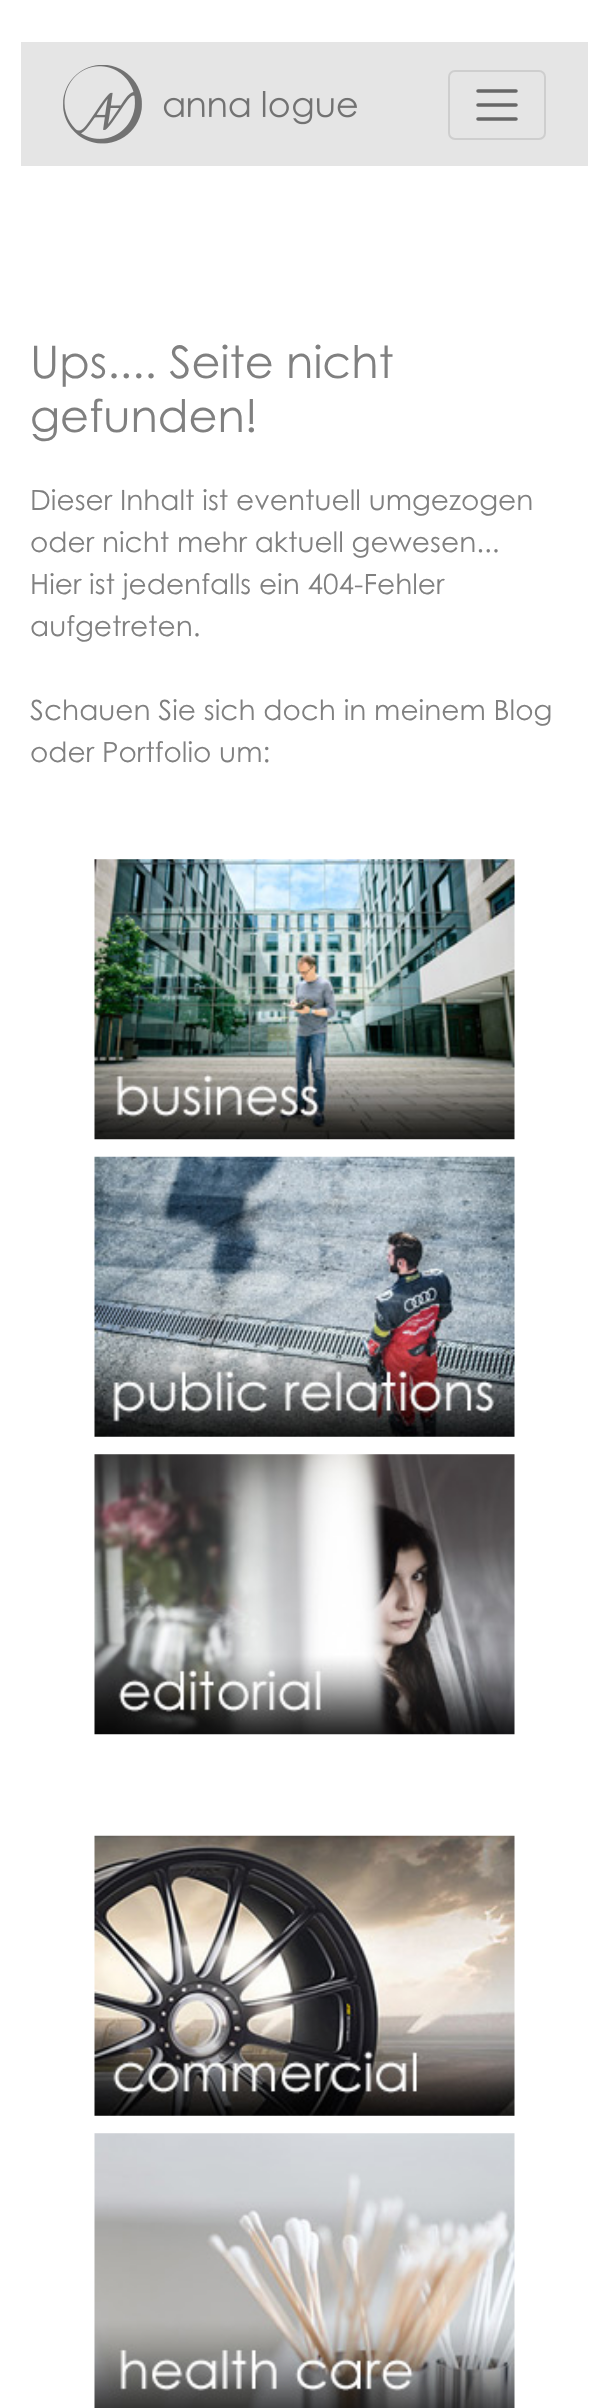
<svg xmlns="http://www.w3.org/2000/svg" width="609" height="2408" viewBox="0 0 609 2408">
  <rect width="100%" height="100%" fill="rgb(255,255,255)"/>
  <rect x="21" y="42" width="567" height="124" fill="rgb(229,229,229)"/>
  <image x="63" y="65" width="294" height="79" href="pic1.png"/>
  <rect x="449" y="71" width="96" height="68" rx="6" fill="none" stroke="rgb(206,206,206)" stroke-width="2"/>
  <path d="M478 91H516M478 105H516M478 119H516" fill="none" stroke="rgb(103,103,103)" stroke-width="3.5" stroke-linecap="round"/>
  <g font-family="Century Gothic" font-size="44.75" fill="rgb(128,128,128)">
    <text>
      <tspan x="30" y="378">Ups.... Seite nicht</tspan>
      <tspan x="30" y="432">gefunden!</tspan>
    </text>
  </g>
  <g font-family="Century Gothic" font-size="28" fill="rgb(128,128,128)">
    <text>
      <tspan x="30" y="510">Dieser Inhalt ist eventuell umgezogen</tspan>
      <tspan x="30" y="552">oder nicht mehr aktuell gewesen...</tspan>
      <tspan x="30" y="594">Hier ist jedenfalls ein 404-Fehler</tspan>
      <tspan x="30" y="636">aufgetreten.</tspan>
    </text>
    <text>
      <tspan x="30" y="720">Schauen Sie sich doch in meinem Blog</tspan>
      <tspan x="30" y="762">oder Portfolio um:</tspan>
    </text>
  </g>
  <image x="94" y="859" width="421" height="281" href="pic2.png"/>
  <image x="94" y="1156" width="421" height="281" href="pic3.png"/>
  <image x="94" y="1454" width="421" height="281" href="pic4.png"/>
  <image x="94" y="1835" width="421" height="281" href="pic5.png"/>
  <image x="94" y="2133" width="421" height="275" href="pic6.png"/>
</svg>
